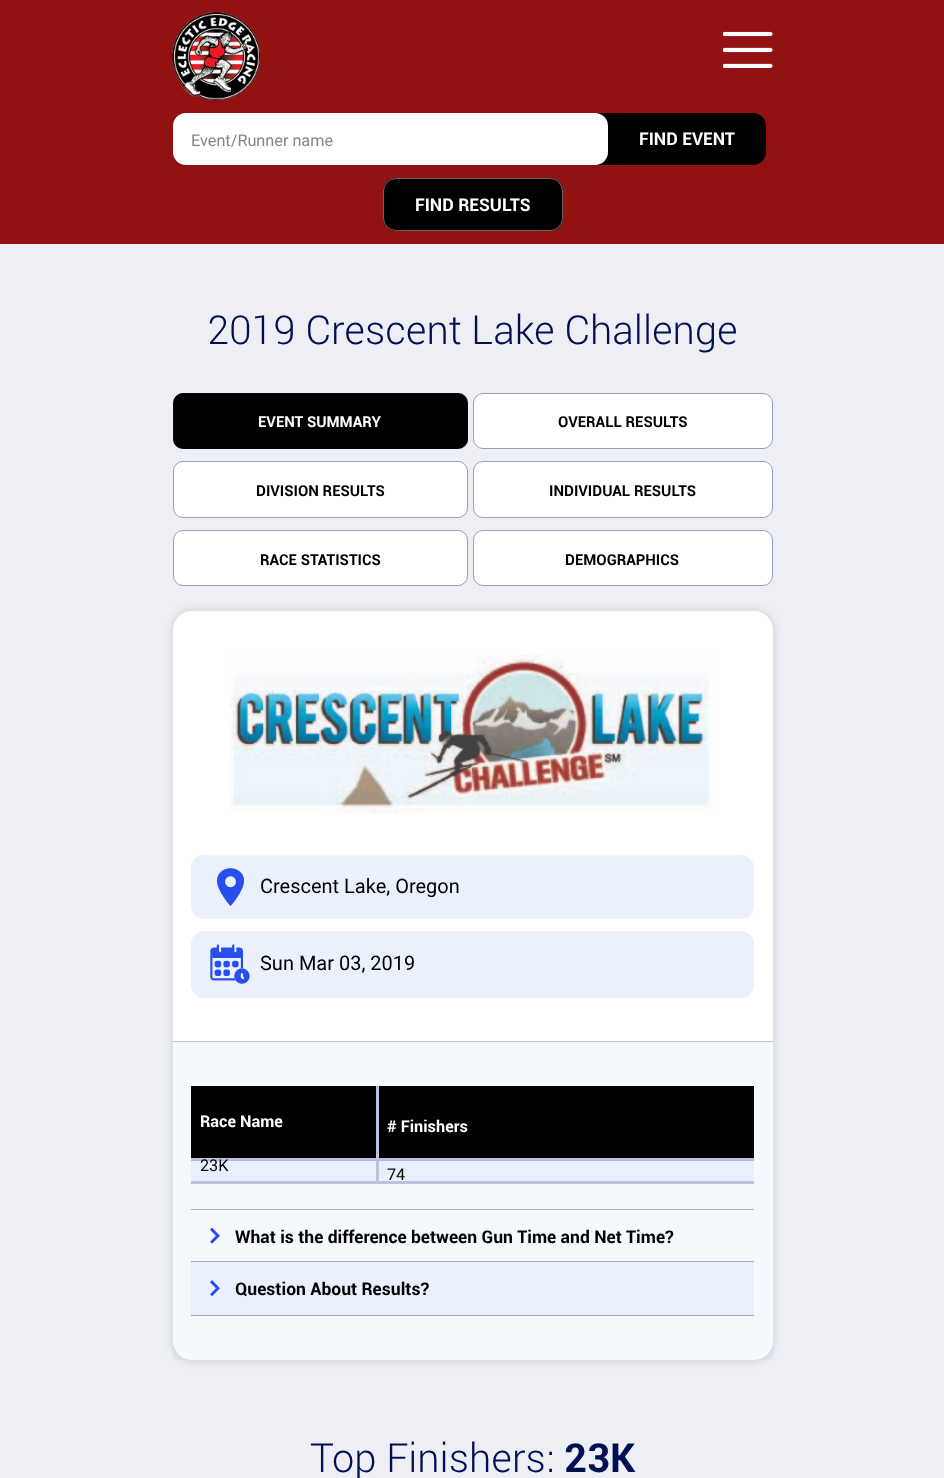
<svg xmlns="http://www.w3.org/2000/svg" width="944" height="1478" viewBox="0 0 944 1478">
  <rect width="100%" height="100%" fill="rgb(238,239,244)"/>
  <rect x="0" y="0" width="944" height="244" fill="rgb(146,17,17)"/>
  <image x="172" y="12" width="88" height="88" href="pic1.png"/>
  <image x="723" y="31" width="50" height="37" href="pic2.png"/>
  <rect x="595" y="113" width="25" height="52" fill="rgb(0,0,0)"/>
  <rect x="173" y="113" width="435" height="52" rx="13" fill="rgb(255,255,255)"/>
  <text x="191" y="146" font-family="Roboto" font-size="16.25" fill="rgb(133,133,133)">Event/Runner name</text>
  <rect x="608" y="113" width="158" height="52" rx="13" fill="rgb(0,0,0)"/>
  <text x="639" y="145" font-family="Roboto" font-size="17.5" font-weight="bold" fill="rgb(255,255,255)">FIND EVENT</text>
  <rect x="383" y="178" width="180" height="53" rx="13" fill="rgb(0,0,0)"/>
  <rect x="383.5" y="178.5" width="179" height="52" rx="12.5" fill="none" stroke="rgba(255,255,255,0.4)"/>
  <text x="415" y="211" font-family="Roboto" font-size="17.5" font-weight="bold" fill="rgb(255,255,255)">FIND RESULTS</text>
  <text x="207" y="344" font-family="Roboto" font-size="40" font-weight="300" fill="rgb(0,14,84)">2019 Crescent Lake Challenge</text>
  <rect x="173" y="393" width="295" height="56" rx="10" fill="rgb(0,0,0)"/>
  <rect x="173.5" y="393.5" width="294" height="55" rx="9.5" fill="none" stroke="rgba(0,14,84,0.4)"/>
  <text x="258" y="427" font-family="Roboto" font-size="15" font-weight="bold" fill="rgb(255,255,255)">EVENT SUMMARY</text>
  <rect x="473" y="393" width="300" height="56" rx="10" fill="rgb(255,255,255)"/>
  <rect x="473.5" y="393.5" width="299" height="55" rx="9.5" fill="none" stroke="rgba(0,14,84,0.4)"/>
  <text x="558" y="427" font-family="Roboto" font-size="15" font-weight="bold" fill="rgb(0,0,0)">OVERALL RESULTS</text>
  <rect x="173" y="461" width="295" height="57" rx="10" fill="rgb(255,255,255)"/>
  <rect x="173.5" y="461.5" width="294" height="56" rx="9.5" fill="none" stroke="rgba(0,14,84,0.4)"/>
  <text x="256" y="496" font-family="Roboto" font-size="15" font-weight="bold" fill="rgb(0,0,0)">DIVISION RESULTS</text>
  <rect x="473" y="461" width="300" height="57" rx="10" fill="rgb(255,255,255)"/>
  <rect x="473.5" y="461.5" width="299" height="56" rx="9.5" fill="none" stroke="rgba(0,14,84,0.4)"/>
  <text x="549" y="496" font-family="Roboto" font-size="15" font-weight="bold" fill="rgb(0,0,0)">INDIVIDUAL RESULTS</text>
  <rect x="173" y="530" width="295" height="56" rx="10" fill="rgb(255,255,255)"/>
  <rect x="173.5" y="530.5" width="294" height="55" rx="9.5" fill="none" stroke="rgba(0,14,84,0.4)"/>
  <text x="260" y="565" font-family="Roboto" font-size="15" font-weight="bold" fill="rgb(0,0,0)">RACE STATISTICS</text>
  <rect x="473" y="530" width="300" height="56" rx="10" fill="rgb(255,255,255)"/>
  <rect x="473.5" y="530.5" width="299" height="55" rx="9.5" fill="none" stroke="rgba(0,14,84,0.4)"/>
  <text x="565" y="565" font-family="Roboto" font-size="15" font-weight="bold" fill="rgb(0,0,0)">DEMOGRAPHICS</text>
  <rect x="173" y="611" width="600" height="749" rx="19" fill="rgba(0,0,0,0.15)" filter="blur(5px)"/>
  <rect x="173" y="611" width="600" height="749" rx="19" fill="rgb(255,255,255)"/>
  <image x="230" y="655" width="484" height="159" href="pic3.png"/>
  <rect x="191" y="855" width="563" height="64" rx="13" fill="rgb(235,241,252)"/>
  <image x="216" y="868" width="28" height="38" href="pic4.png"/>
  <text x="260" y="893" font-family="Roboto" font-size="20" fill="rgb(0,0,0)">Crescent Lake, Oregon</text>
  <rect x="191" y="931" width="563" height="67" rx="13" fill="rgb(235,241,252)"/>
  <image x="210" y="944" width="40" height="40" href="pic5.png"/>
  <text x="260" y="970" font-family="Roboto" font-size="20" fill="rgb(0,0,0)">Sun Mar 03, 2019</text>
  <rect x="173" y="1042" width="600" height="318" fill="rgba(0,108,203,0.04)"/>
  <rect x="173" y="1041" width="600" height="1" fill="rgb(185,196,220)"/>
  <rect x="191" y="1086" width="563" height="72" fill="rgb(0,0,0)"/>
  <rect x="376" y="1086" width="3" height="72" fill="rgb(185,196,220)"/>
  <g font-family="Roboto" font-size="16.25" font-weight="bold" fill="rgb(255,255,255)">
    <text x="200" y="1127">Race Name</text>
    <text x="387" y="1132"># Finishers</text>
  </g>
  <rect x="191" y="1158" width="563" height="3" fill="rgb(185,196,220)"/>
  <rect x="191" y="1160" width="563" height="21" fill="rgba(11,78,212,0.05)"/>
  <rect x="191" y="1181" width="563" height="3" fill="rgb(185,196,220)"/>
  <rect x="376" y="1160" width="3" height="21" fill="rgb(185,196,220)"/>
  <g font-family="Roboto" font-size="16.25" fill="rgb(0,0,0)">
    <text x="200" y="1171">23K</text>
    <text x="387" y="1180">74</text>
  </g>
  <rect x="191" y="1209" width="563" height="1" fill="rgb(171,174,177)"/>
  <image x="210" y="1228" width="10" height="16" href="pic6.png"/>
  <text x="235" y="1243" font-family="Roboto" font-size="17.5" font-weight="bold" fill="rgb(0,0,0)">What is the difference between Gun Time and Net Time?</text>
  <rect x="191" y="1262" width="563" height="53" fill="rgb(233,240,251)"/>
  <rect x="191" y="1261" width="563" height="1" fill="rgb(163,168,176)"/>
  <rect x="191" y="1315" width="563" height="1" fill="rgb(163,168,176)"/>
  <image x="210" y="1280" width="10" height="16" href="pic7.png"/>
  <text x="235" y="1295" font-family="Roboto" font-size="17.5" font-weight="bold" fill="rgb(0,0,0)">Question About Results?</text>
  <text x="310" y="1472" font-family="Roboto" font-size="40" font-weight="300" fill="rgb(0,14,84)">Top Finishers:</text>
  <text x="564" y="1472" font-family="Roboto" font-size="40" font-weight="bold" fill="rgb(0,14,84)">23K</text>
</svg>
